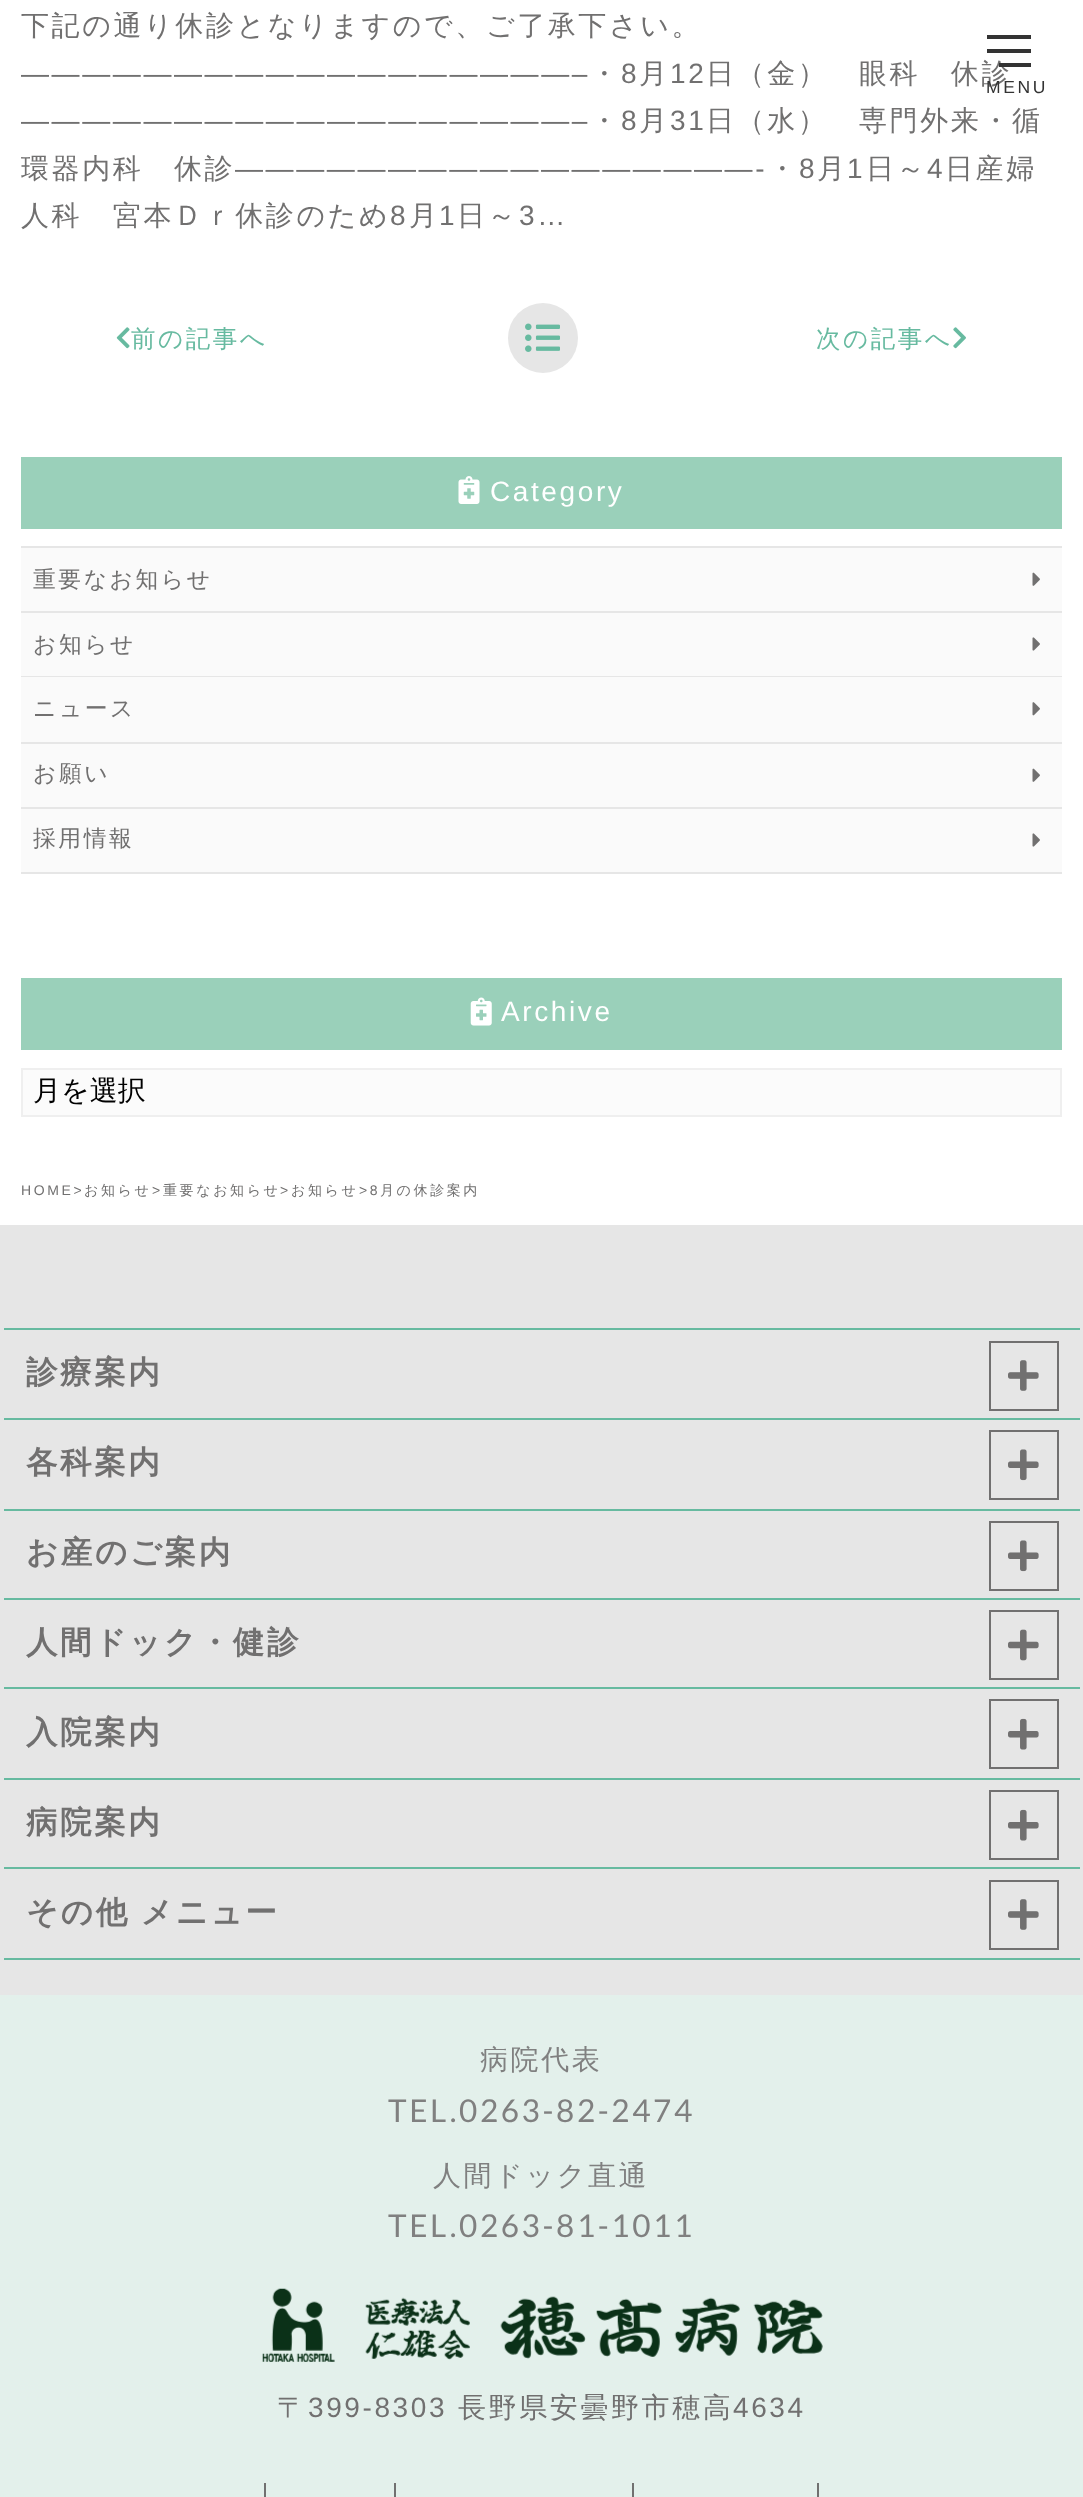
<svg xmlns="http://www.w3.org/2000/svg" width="1083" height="2497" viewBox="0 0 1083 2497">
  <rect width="100%" height="100%" fill="rgb(255,255,255)"/>
  <text x="21" y="35" font-family="WenQuanYi Zen Hei" font-size="28" font-weight="500" letter-spacing="2.6" fill="rgb(113,112,112)">下記の通り休診となりますので、ご了承下さい。</text>
  <text x="21" y="83" font-family="Liberation Sans" font-size="28" letter-spacing="2.6" fill="rgb(113,112,112)">——————————————————–</text>
  <text x="590" y="83" font-family="WenQuanYi Zen Hei" font-size="28" font-weight="500" letter-spacing="2.6" fill="rgb(113,112,112)">・</text>
  <text x="621" y="83" font-family="Liberation Sans" font-size="28" letter-spacing="2.6" fill="rgb(113,112,112)">8</text>
  <text x="639" y="83" font-family="WenQuanYi Zen Hei" font-size="28" font-weight="500" letter-spacing="2.6" fill="rgb(113,112,112)">月</text>
  <text x="670" y="83" font-family="Liberation Sans" font-size="28" letter-spacing="2.6" fill="rgb(113,112,112)">12</text>
  <text x="706" y="83" font-family="WenQuanYi Zen Hei" font-size="28" font-weight="500" letter-spacing="2.6" fill="rgb(113,112,112)">日（金）　眼科　休診</text>
  <text x="21" y="130" font-family="Liberation Sans" font-size="28" letter-spacing="2.6" fill="rgb(113,112,112)">——————————————————–</text>
  <text x="590" y="130" font-family="WenQuanYi Zen Hei" font-size="28" font-weight="500" letter-spacing="2.6" fill="rgb(113,112,112)">・</text>
  <text x="621" y="130" font-family="Liberation Sans" font-size="28" letter-spacing="2.6" fill="rgb(113,112,112)">8</text>
  <text x="639" y="130" font-family="WenQuanYi Zen Hei" font-size="28" font-weight="500" letter-spacing="2.6" fill="rgb(113,112,112)">月</text>
  <text x="670" y="130" font-family="Liberation Sans" font-size="28" letter-spacing="2.6" fill="rgb(113,112,112)">31</text>
  <g font-family="WenQuanYi Zen Hei" font-size="28" font-weight="500" letter-spacing="2.6" fill="rgb(113,112,112)">
    <text x="706" y="130">日（水）　専門外来・循</text>
    <text x="21" y="178">環器内科　休診</text>
  </g>
  <text x="235" y="178" font-family="Liberation Sans" font-size="28" letter-spacing="2.6" fill="rgb(113,112,112)">—————————————————-</text>
  <text x="768" y="178" font-family="WenQuanYi Zen Hei" font-size="28" font-weight="500" letter-spacing="2.6" fill="rgb(113,112,112)">・</text>
  <text x="799" y="178" font-family="Liberation Sans" font-size="28" letter-spacing="2.6" fill="rgb(113,112,112)">8</text>
  <text x="817" y="178" font-family="WenQuanYi Zen Hei" font-size="28" font-weight="500" letter-spacing="2.6" fill="rgb(113,112,112)">月</text>
  <text x="847" y="178" font-family="Liberation Sans" font-size="28" letter-spacing="2.6" fill="rgb(113,112,112)">1</text>
  <text x="866" y="178" font-family="WenQuanYi Zen Hei" font-size="28" font-weight="500" letter-spacing="2.6" fill="rgb(113,112,112)">日～</text>
  <text x="927" y="178" font-family="Liberation Sans" font-size="28" letter-spacing="2.6" fill="rgb(113,112,112)">4</text>
  <g font-family="WenQuanYi Zen Hei" font-size="28" font-weight="500" letter-spacing="2.6" fill="rgb(113,112,112)">
    <text x="945" y="178">日産婦</text>
    <text x="21" y="225">人科　宮本Ｄｒ休診のため</text>
  </g>
  <text x="390" y="225" font-family="Liberation Sans" font-size="28" letter-spacing="2.6" fill="rgb(113,112,112)">8</text>
  <text x="409" y="225" font-family="WenQuanYi Zen Hei" font-size="28" font-weight="500" letter-spacing="2.6" fill="rgb(113,112,112)">月</text>
  <text x="439" y="225" font-family="Liberation Sans" font-size="28" letter-spacing="2.6" fill="rgb(113,112,112)">1</text>
  <text x="457" y="225" font-family="WenQuanYi Zen Hei" font-size="28" font-weight="500" letter-spacing="2.6" fill="rgb(113,112,112)">日～</text>
  <text x="519" y="225" font-family="Liberation Sans" font-size="28" letter-spacing="2.6" fill="rgb(113,112,112)">3…</text>
  <image x="116" y="327" width="14" height="22" href="pic1.png"/>
  <text x="131" y="347" font-family="WenQuanYi Zen Hei" font-size="24.5" font-weight="500" letter-spacing="2.6" fill="rgb(103,186,160)">前の記事へ</text>
  <circle cx="543" cy="338" r="35" fill="rgb(230,230,230)"/>
  <image x="525" y="323" width="35" height="29" href="pic2.png"/>
  <text x="816" y="347" font-family="WenQuanYi Zen Hei" font-size="24.5" font-weight="500" letter-spacing="2.6" fill="rgb(103,186,160)">次の記事へ</text>
  <image x="953" y="327" width="13" height="22" href="pic3.png"/>
  <rect x="21" y="457" width="1041" height="72" fill="rgb(154,208,186)"/>
  <image x="458" y="476" width="22" height="28" href="pic4.png"/>
  <text x="490" y="501" font-family="Liberation Sans" font-size="28" letter-spacing="2.6" fill="rgb(255,255,255)">Category</text>
  <rect x="21" y="548" width="1041" height="63" fill="rgb(250,250,250)"/>
  <rect x="21" y="546" width="1041" height="2" fill="rgb(230,230,230)"/>
  <rect x="21" y="611" width="1041" height="2" fill="rgb(230,230,230)"/>
  <text x="33" y="587" font-family="WenQuanYi Zen Hei" font-size="22.75" font-weight="500" letter-spacing="2.6" fill="rgb(113,112,112)">重要なお知らせ</text>
  <image x="1032" y="572" width="8" height="14" href="pic5.png"/>
  <rect x="21" y="613" width="1041" height="63" fill="rgb(250,250,250)"/>
  <rect x="21" y="676" width="1041" height="1" fill="rgb(230,230,230)"/>
  <text x="33" y="652" font-family="WenQuanYi Zen Hei" font-size="22.75" font-weight="500" letter-spacing="2.6" fill="rgb(113,112,112)">お知らせ</text>
  <image x="1032" y="637" width="8" height="14" href="pic6.png"/>
  <rect x="21" y="677" width="1041" height="65" fill="rgb(250,250,250)"/>
  <rect x="21" y="742" width="1041" height="2" fill="rgb(230,230,230)"/>
  <text x="33" y="716" font-family="WenQuanYi Zen Hei" font-size="22.75" font-weight="500" letter-spacing="2.6" fill="rgb(113,112,112)">ニュース</text>
  <image x="1032" y="702" width="8" height="14" href="pic7.png"/>
  <rect x="21" y="744" width="1041" height="63" fill="rgb(250,250,250)"/>
  <rect x="21" y="807" width="1041" height="2" fill="rgb(230,230,230)"/>
  <text x="33" y="781" font-family="WenQuanYi Zen Hei" font-size="22.75" font-weight="500" letter-spacing="2.6" fill="rgb(113,112,112)">お願い</text>
  <image x="1032" y="768" width="8" height="14" href="pic5.png"/>
  <rect x="21" y="809" width="1041" height="63" fill="rgb(250,250,250)"/>
  <rect x="21" y="872" width="1041" height="2" fill="rgb(230,230,230)"/>
  <text x="33" y="846" font-family="WenQuanYi Zen Hei" font-size="22.75" font-weight="500" letter-spacing="2.6" fill="rgb(113,112,112)">採用情報</text>
  <image x="1032" y="833" width="8" height="14" href="pic6.png"/>
  <rect x="21" y="978" width="1041" height="72" fill="rgb(154,208,186)"/>
  <image x="470" y="997" width="22" height="29" href="pic8.png"/>
  <text x="501" y="1021" font-family="Liberation Sans" font-size="28" letter-spacing="2.6" fill="rgb(255,255,255)">Archive</text>
  <rect x="22" y="1069" width="1039" height="47" fill="rgb(251,251,251)" stroke="rgb(239,239,239)" stroke-width="2"/>
  <text x="33" y="1100" font-family="WenQuanYi Zen Hei" font-size="28" font-weight="500" fill="rgb(0,0,0)">月を選択</text>
  <text x="21" y="1195" font-family="Liberation Sans" font-size="14" letter-spacing="2.6" fill="rgb(113,112,112)">HOME&gt;</text>
  <text x="84" y="1195" font-family="WenQuanYi Zen Hei" font-size="14" font-weight="500" letter-spacing="2.6" fill="rgb(113,112,112)">お知らせ</text>
  <text x="152" y="1195" font-family="Liberation Sans" font-size="14" letter-spacing="2.6" fill="rgb(113,112,112)">&gt;</text>
  <text x="163" y="1195" font-family="WenQuanYi Zen Hei" font-size="14" font-weight="500" letter-spacing="2.6" fill="rgb(113,112,112)">重要なお知らせ</text>
  <text x="280" y="1195" font-family="Liberation Sans" font-size="14" letter-spacing="2.6" fill="rgb(113,112,112)">&gt;</text>
  <text x="291" y="1195" font-family="WenQuanYi Zen Hei" font-size="14" font-weight="500" letter-spacing="2.6" fill="rgb(113,112,112)">お知らせ</text>
  <text x="359" y="1195" font-family="Liberation Sans" font-size="14" letter-spacing="2.6" fill="rgb(113,112,112)">&gt;8</text>
  <text x="380" y="1195" font-family="WenQuanYi Zen Hei" font-size="14" font-weight="500" letter-spacing="2.6" fill="rgb(113,112,112)">月の休診案内</text>
  <rect x="987" y="35" width="44" height="4" fill="rgb(51,51,51)"/>
  <rect x="987" y="49" width="44" height="4" fill="rgb(51,51,51)"/>
  <rect x="999" y="63" width="32" height="4" fill="rgb(51,51,51)"/>
  <text x="986" y="93" font-family="Liberation Sans" font-size="17.5" letter-spacing="2.6" fill="rgb(51,51,51)">MENU</text>
  <rect x="0" y="1225" width="1083" height="770" fill="rgb(230,230,230)"/>
  <rect x="4" y="1328" width="1076" height="2" fill="rgb(103,186,160)"/>
  <rect x="4" y="1418" width="1076" height="2" fill="rgb(103,186,160)"/>
  <text x="26" y="1383" font-family="WenQuanYi Zen Hei" font-size="31.5" font-weight="bold" letter-spacing="2.6" fill="rgb(113,112,112)">診療案内</text>
  <rect x="990" y="1342" width="68" height="68" fill="none" stroke="rgb(113,112,112)" stroke-width="2"/>
  <image x="1008" y="1360" width="31" height="31" href="pic9.png"/>
  <rect x="4" y="1509" width="1076" height="2" fill="rgb(103,186,160)"/>
  <text x="26" y="1473" font-family="WenQuanYi Zen Hei" font-size="31.5" font-weight="bold" letter-spacing="2.6" fill="rgb(113,112,112)">各科案内</text>
  <rect x="990" y="1431" width="68" height="68" fill="none" stroke="rgb(113,112,112)" stroke-width="2"/>
  <image x="1008" y="1449" width="31" height="32" href="pic10.png"/>
  <rect x="4" y="1598" width="1076" height="2" fill="rgb(103,186,160)"/>
  <text x="26" y="1563" font-family="WenQuanYi Zen Hei" font-size="31.5" font-weight="bold" letter-spacing="2.6" fill="rgb(113,112,112)">お産のご案内</text>
  <rect x="990" y="1522" width="68" height="68" fill="none" stroke="rgb(113,112,112)" stroke-width="2"/>
  <image x="1008" y="1540" width="31" height="32" href="pic10.png"/>
  <rect x="4" y="1687" width="1076" height="2" fill="rgb(103,186,160)"/>
  <text x="26" y="1653" font-family="WenQuanYi Zen Hei" font-size="31.5" font-weight="bold" letter-spacing="2.6" fill="rgb(113,112,112)">人間ドック・健診</text>
  <rect x="990" y="1611" width="68" height="68" fill="none" stroke="rgb(113,112,112)" stroke-width="2"/>
  <image x="1008" y="1629" width="31" height="32" href="pic11.png"/>
  <rect x="4" y="1778" width="1076" height="2" fill="rgb(103,186,160)"/>
  <text x="26" y="1743" font-family="WenQuanYi Zen Hei" font-size="31.5" font-weight="bold" letter-spacing="2.6" fill="rgb(113,112,112)">入院案内</text>
  <rect x="990" y="1700" width="68" height="68" fill="none" stroke="rgb(113,112,112)" stroke-width="2"/>
  <image x="1008" y="1718" width="31" height="32" href="pic12.png"/>
  <rect x="4" y="1867" width="1076" height="2" fill="rgb(103,186,160)"/>
  <text x="26" y="1833" font-family="WenQuanYi Zen Hei" font-size="31.5" font-weight="bold" letter-spacing="2.6" fill="rgb(113,112,112)">病院案内</text>
  <rect x="990" y="1791" width="68" height="68" fill="none" stroke="rgb(113,112,112)" stroke-width="2"/>
  <image x="1008" y="1809" width="31" height="32" href="pic12.png"/>
  <rect x="4" y="1958" width="1076" height="2" fill="rgb(103,186,160)"/>
  <text x="26" y="1923" word-spacing="-1" font-family="WenQuanYi Zen Hei" font-size="31.5" font-weight="bold" letter-spacing="2.6" fill="rgb(113,112,112)">その他 メニュー</text>
  <rect x="990" y="1881" width="68" height="68" fill="none" stroke="rgb(113,112,112)" stroke-width="2"/>
  <image x="1008" y="1899" width="31" height="31" href="pic9.png"/>
  <rect x="0" y="1995" width="1083" height="502" fill="rgb(227,240,235)"/>
  <text x="480" y="2069" font-family="WenQuanYi Zen Hei" font-size="28" font-weight="500" letter-spacing="2.6" fill="rgb(128,128,128)">病院代表</text>
  <text x="388" y="2122" font-family="Lato" font-size="31.5" letter-spacing="2.6" fill="rgb(128,128,128)">TEL.0263-82-2474</text>
  <text x="433" y="2185" font-family="WenQuanYi Zen Hei" font-size="28" font-weight="500" letter-spacing="2.6" fill="rgb(128,128,128)">人間ドック直通</text>
  <text x="388" y="2237" font-family="Lato" font-size="31.5" letter-spacing="2.6" fill="rgb(128,128,128)">TEL.0263-81-1011</text>
  <image x="262" y="2288" width="561" height="74" href="pic13.png"/>
  <text x="277" y="2417" font-family="WenQuanYi Zen Hei" font-size="28" font-weight="500" letter-spacing="2.6" fill="rgb(113,112,112)">〒</text>
  <text x="308" y="2417" font-family="Liberation Sans" font-size="28" letter-spacing="2.6" fill="rgb(113,112,112)">399-8303</text>
  <text x="458" y="2417" font-family="WenQuanYi Zen Hei" font-size="28" font-weight="500" letter-spacing="2.6" fill="rgb(113,112,112)">長野県安曇野市穂高</text>
  <text x="733" y="2417" font-family="Liberation Sans" font-size="28" letter-spacing="2.6" fill="rgb(113,112,112)">4634</text>
  <rect x="264" y="2483" width="2" height="14" fill="rgb(113,112,112)"/>
  <rect x="394" y="2483" width="2" height="14" fill="rgb(113,112,112)"/>
  <rect x="632" y="2483" width="2" height="14" fill="rgb(113,112,112)"/>
  <rect x="817" y="2483" width="2" height="14" fill="rgb(113,112,112)"/>
</svg>
